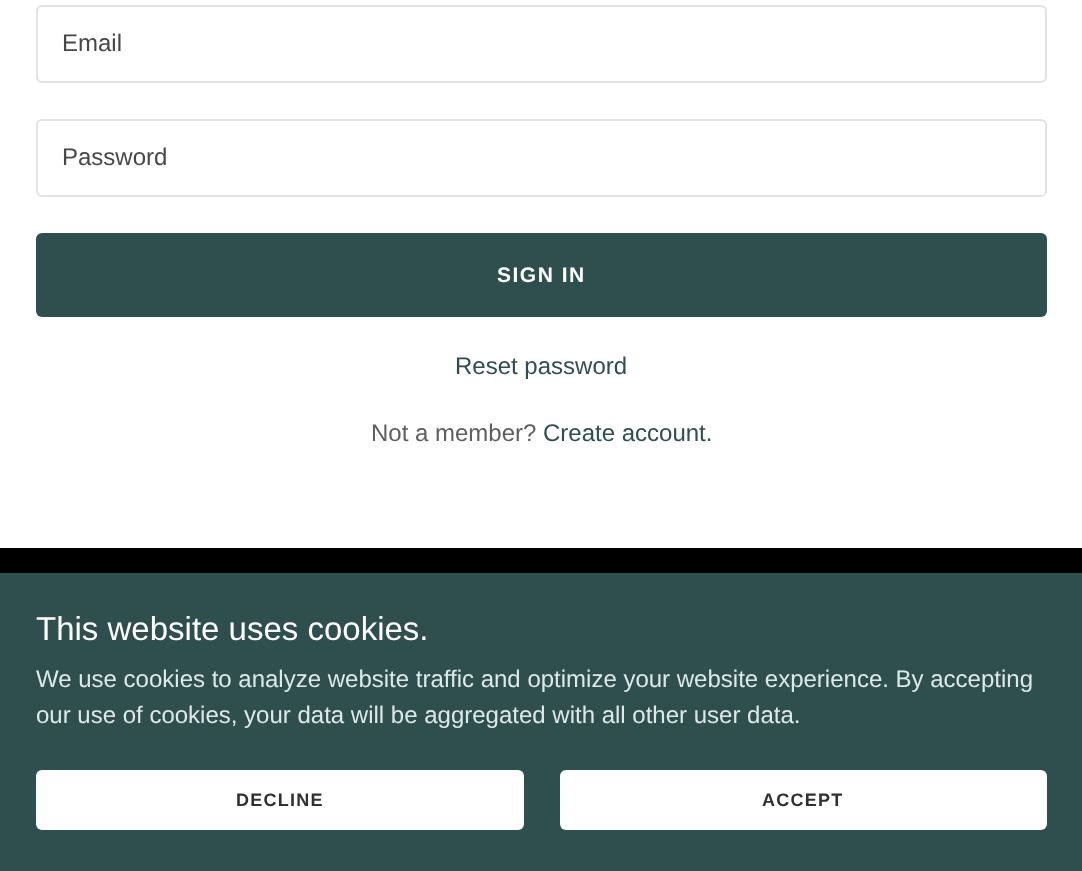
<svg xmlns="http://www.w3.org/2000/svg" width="1082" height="871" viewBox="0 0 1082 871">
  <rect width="100%" height="100%" fill="rgb(0,0,0)"/>
  <rect x="0" y="0" width="1082" height="548" fill="rgb(255,255,255)"/>
  <rect x="37" y="6" width="1009" height="76" rx="5" fill="none" stroke="rgb(226,226,226)" stroke-width="2"/>
  <text x="62" y="51" font-family="Liberation Sans" font-size="24" fill="rgb(71,71,71)">Email</text>
  <rect x="37" y="120" width="1009" height="76" rx="5" fill="none" stroke="rgb(226,226,226)" stroke-width="2"/>
  <text x="62" y="165" font-family="Liberation Sans" font-size="24" fill="rgb(71,71,71)">Password</text>
  <rect x="36" y="233" width="1011" height="84" rx="6" fill="rgb(47,79,79)"/>
  <text x="497" y="282" font-family="Liberation Sans" font-size="21" font-weight="bold" letter-spacing="1.5" fill="rgb(255,255,255)">SIGN IN</text>
  <text x="455" y="374" font-family="Liberation Sans" font-size="24" fill="rgb(47,79,79)">Reset password</text>
  <text x="371" y="441" font-family="Liberation Sans" font-size="24" fill="rgb(94,94,94)">Not a member?</text>
  <text x="543" y="441" font-family="Liberation Sans" font-size="24" fill="rgb(47,79,79)">Create account.</text>
  <rect x="0" y="573" width="1082" height="298" fill="rgb(47,79,79)"/>
  <text x="36" y="640" font-family="Liberation Sans" font-size="33" fill="rgb(255,255,255)">This website uses cookies.</text>
  <g font-family="Liberation Sans" font-size="24" fill="rgb(222,232,232)">
    <text>
      <tspan x="36" y="687">We use cookies to analyze website traffic and optimize your website experience. By accepting</tspan>
      <tspan x="36" y="723">our use of cookies, your data will be aggregated with all other user data.</tspan>
    </text>
  </g>
  <rect x="36" y="770" width="488" height="60" rx="6" fill="rgb(255,255,255)"/>
  <text x="236" y="806" font-family="Liberation Sans" font-size="18" font-weight="bold" letter-spacing="1.25" fill="rgb(48,48,48)">DECLINE</text>
  <rect x="560" y="770" width="487" height="60" rx="6" fill="rgb(255,255,255)"/>
  <text x="762" y="806" font-family="Liberation Sans" font-size="18" font-weight="bold" letter-spacing="1.25" fill="rgb(48,48,48)">ACCEPT</text>
</svg>
